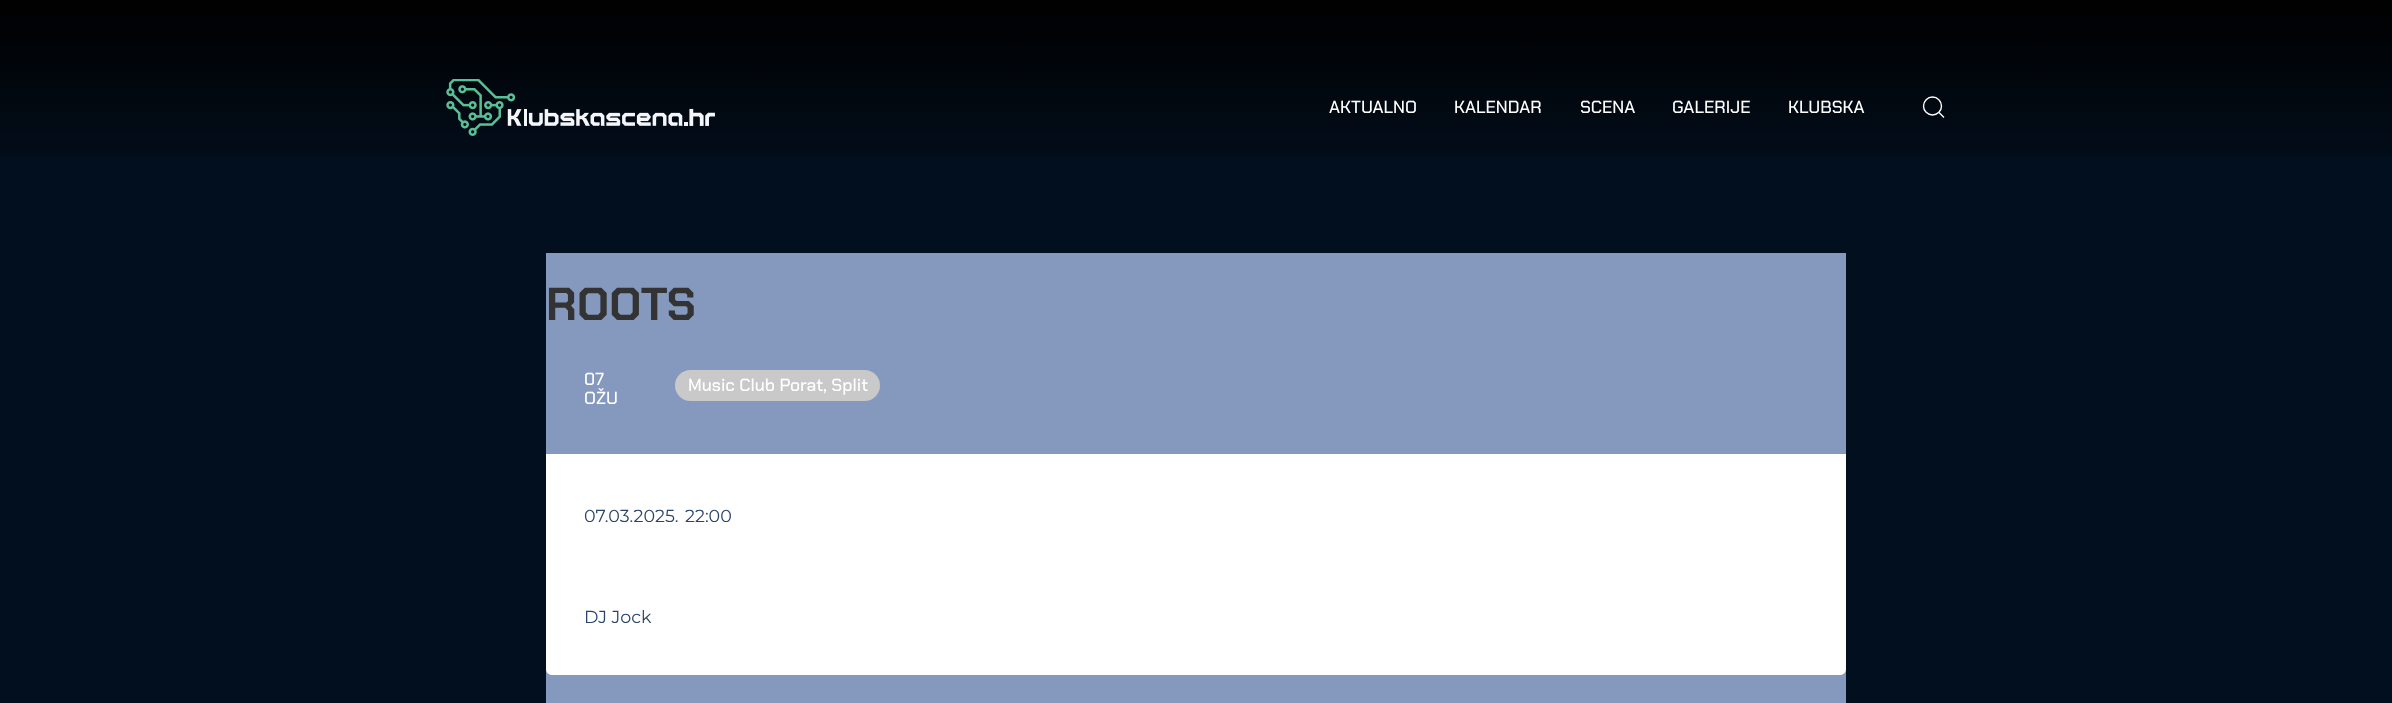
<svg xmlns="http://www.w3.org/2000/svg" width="2392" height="703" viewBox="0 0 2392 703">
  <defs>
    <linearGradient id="g1" gradientUnits="userSpaceOnUse" x1="1196" y1="0" x2="1196" y2="165"><stop offset="0" stop-color="rgb(0,0,0)"/><stop offset="0.9" stop-color="rgb(2,12,24)"/><stop offset="1" stop-color="rgb(2,15,30)"/></linearGradient>
  </defs>
  <rect width="100%" height="100%" fill="rgb(2,15,30)"/>
  <rect x="0" y="0" width="2392" height="158" fill="url(#g1)"/>
  <image x="446" y="79" width="269" height="57" href="pic1.png"/>
  <g font-family="Chakra Petch" font-size="17.5" font-weight="500" fill="rgb(255,255,255)">
    <text x="1329" y="113">AKTUALNO</text>
    <text x="1454" y="113">KALENDAR</text>
    <text x="1580" y="113">SCENA</text>
    <text x="1672" y="113">GALERIJE</text>
    <text x="1788" y="113">KLUBSKA</text>
  </g>
  <circle cx="1932.5" cy="106" r="9" fill="none" stroke="rgb(255,255,255)" stroke-width="1.4"/>
  <path d="M1939 112.5L1944 117.5Z" fill="none" stroke="rgb(255,255,255)" stroke-width="1.4"/>
  <rect x="546" y="253" width="1300" height="450" fill="rgb(133,153,190)"/>
  <text x="546" y="320" font-family="Chakra Petch" font-size="46" font-weight="bold" fill="rgb(51,51,51)">ROOTS</text>
  <g font-family="Chakra Petch" font-size="17.5" font-weight="500" fill="rgb(255,255,255)">
    <text>
      <tspan x="584" y="385">07</tspan>
      <tspan x="584" y="404">OŽU</tspan>
    </text>
  </g>
  <rect x="675" y="370" width="205" height="31" rx="15.5" fill="rgb(201,201,201)"/>
  <text x="688" y="391" font-family="Chakra Petch" font-size="17.5" font-weight="500" fill="rgb(255,255,255)">Music Club Porat, Split</text>
  <path d="M546 454H1846V669C1846 672.5 1843.5 675 1840 675H552C548.5 675 546 672.5 546 669Z" fill="rgb(255,255,255)"/>
  <g font-family="Montserrat" font-size="17.5" font-weight="100" fill="rgb(43,68,104)">
    <text x="584" y="522">07.03.2025.</text>
    <text x="685" y="522">22:00</text>
    <text x="584" y="623">DJ Jock</text>
  </g>
</svg>
